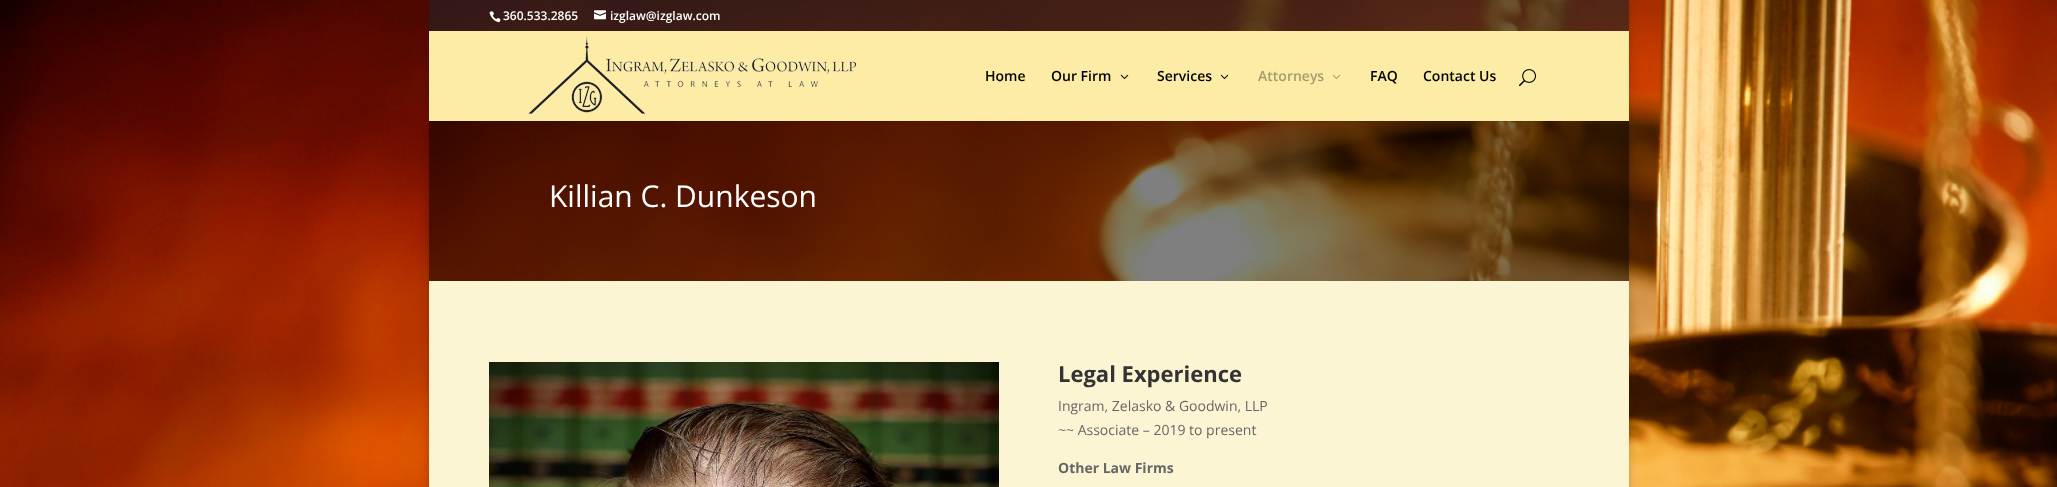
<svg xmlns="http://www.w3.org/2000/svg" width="2057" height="487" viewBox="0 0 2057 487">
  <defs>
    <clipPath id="clip1"><path d="M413 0H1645V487H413ZM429 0H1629V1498H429Z" clip-rule="evenodd"/></clipPath>
  </defs>
  <rect width="100%" height="100%" fill="rgb(255,255,255)"/>
  <image x="0" y="0" width="2057" height="487" href="pic1.png"/>
  <g clip-path="url(#clip1)">
    <rect x="429" y="0" width="1200" height="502" fill="rgba(0,0,0,0.2)" filter="blur(5px)"/>
  </g>
  <rect x="429" y="0" width="1200" height="31" fill="rgba(34,34,34,0.64)"/>
  <image x="489" y="11" width="12" height="12" href="pic2.png"/>
  <text x="503" y="20" font-family="Open Sans" font-size="12" font-weight="600" fill="rgb(255,255,255)">360.533.2865</text>
  <image x="594" y="10" width="12" height="10" href="pic3.png"/>
  <text x="610" y="20" font-family="Open Sans" font-size="12" font-weight="600" fill="rgb(255,255,255)">izglaw@izglaw.com</text>
  <rect x="429" y="121" width="1200" height="160" fill="rgba(0,0,0,0.5)"/>
  <rect x="429" y="121" width="1200" height="1" fill="rgba(0,0,0,0.1)"/>
  <rect x="429" y="31" width="1200" height="90" fill="rgb(252,236,166)"/>
  <image x="528" y="36" width="328" height="78" href="pic4.png"/>
  <g font-family="Open Sans" font-size="14" font-weight="600" fill="rgb(0,0,0)">
    <text x="985" y="81">Home</text>
    <text x="1051" y="81">Our Firm</text>
  </g>
  <image x="1120" y="74" width="9" height="5" href="pic5.png"/>
  <text x="1157" y="81" font-family="Open Sans" font-size="14" font-weight="600" fill="rgb(0,0,0)">Services</text>
  <image x="1220" y="74" width="9" height="5" href="pic5.png"/>
  <text x="1258" y="81" font-family="Open Sans" font-size="14" font-weight="600" fill="rgb(166,156,110)">Attorneys</text>
  <image x="1332" y="74" width="9" height="5" href="pic6.png"/>
  <g font-family="Open Sans" font-size="14" font-weight="600" fill="rgb(0,0,0)">
    <text x="1370" y="81">FAQ</text>
    <text x="1423" y="81">Contact Us</text>
  </g>
  <image x="1519" y="69" width="17" height="18" href="pic7.png"/>
  <text x="549" y="207" font-family="Open Sans" font-size="30" fill="rgb(255,255,255)">Killian C. Dunkeson</text>
  <rect x="429" y="281" width="1200" height="206" fill="rgb(252,245,212)"/>
  <image x="489" y="362" width="510" height="125" href="pic8.png"/>
  <text x="1058" y="382" font-family="Open Sans" font-size="22" font-weight="bold" fill="rgb(51,51,51)">Legal Experience</text>
  <g font-family="Open Sans" font-size="14" fill="rgb(102,102,102)">
    <text>
      <tspan x="1058" y="411">Ingram, Zelasko &amp; Goodwin, LLP</tspan>
      <tspan x="1058" y="435">~~ Associate – 2019 to present</tspan>
    </text>
  </g>
  <text x="1058" y="473" font-family="Open Sans" font-size="14" font-weight="bold" fill="rgb(102,102,102)">Other Law Firms</text>
</svg>
